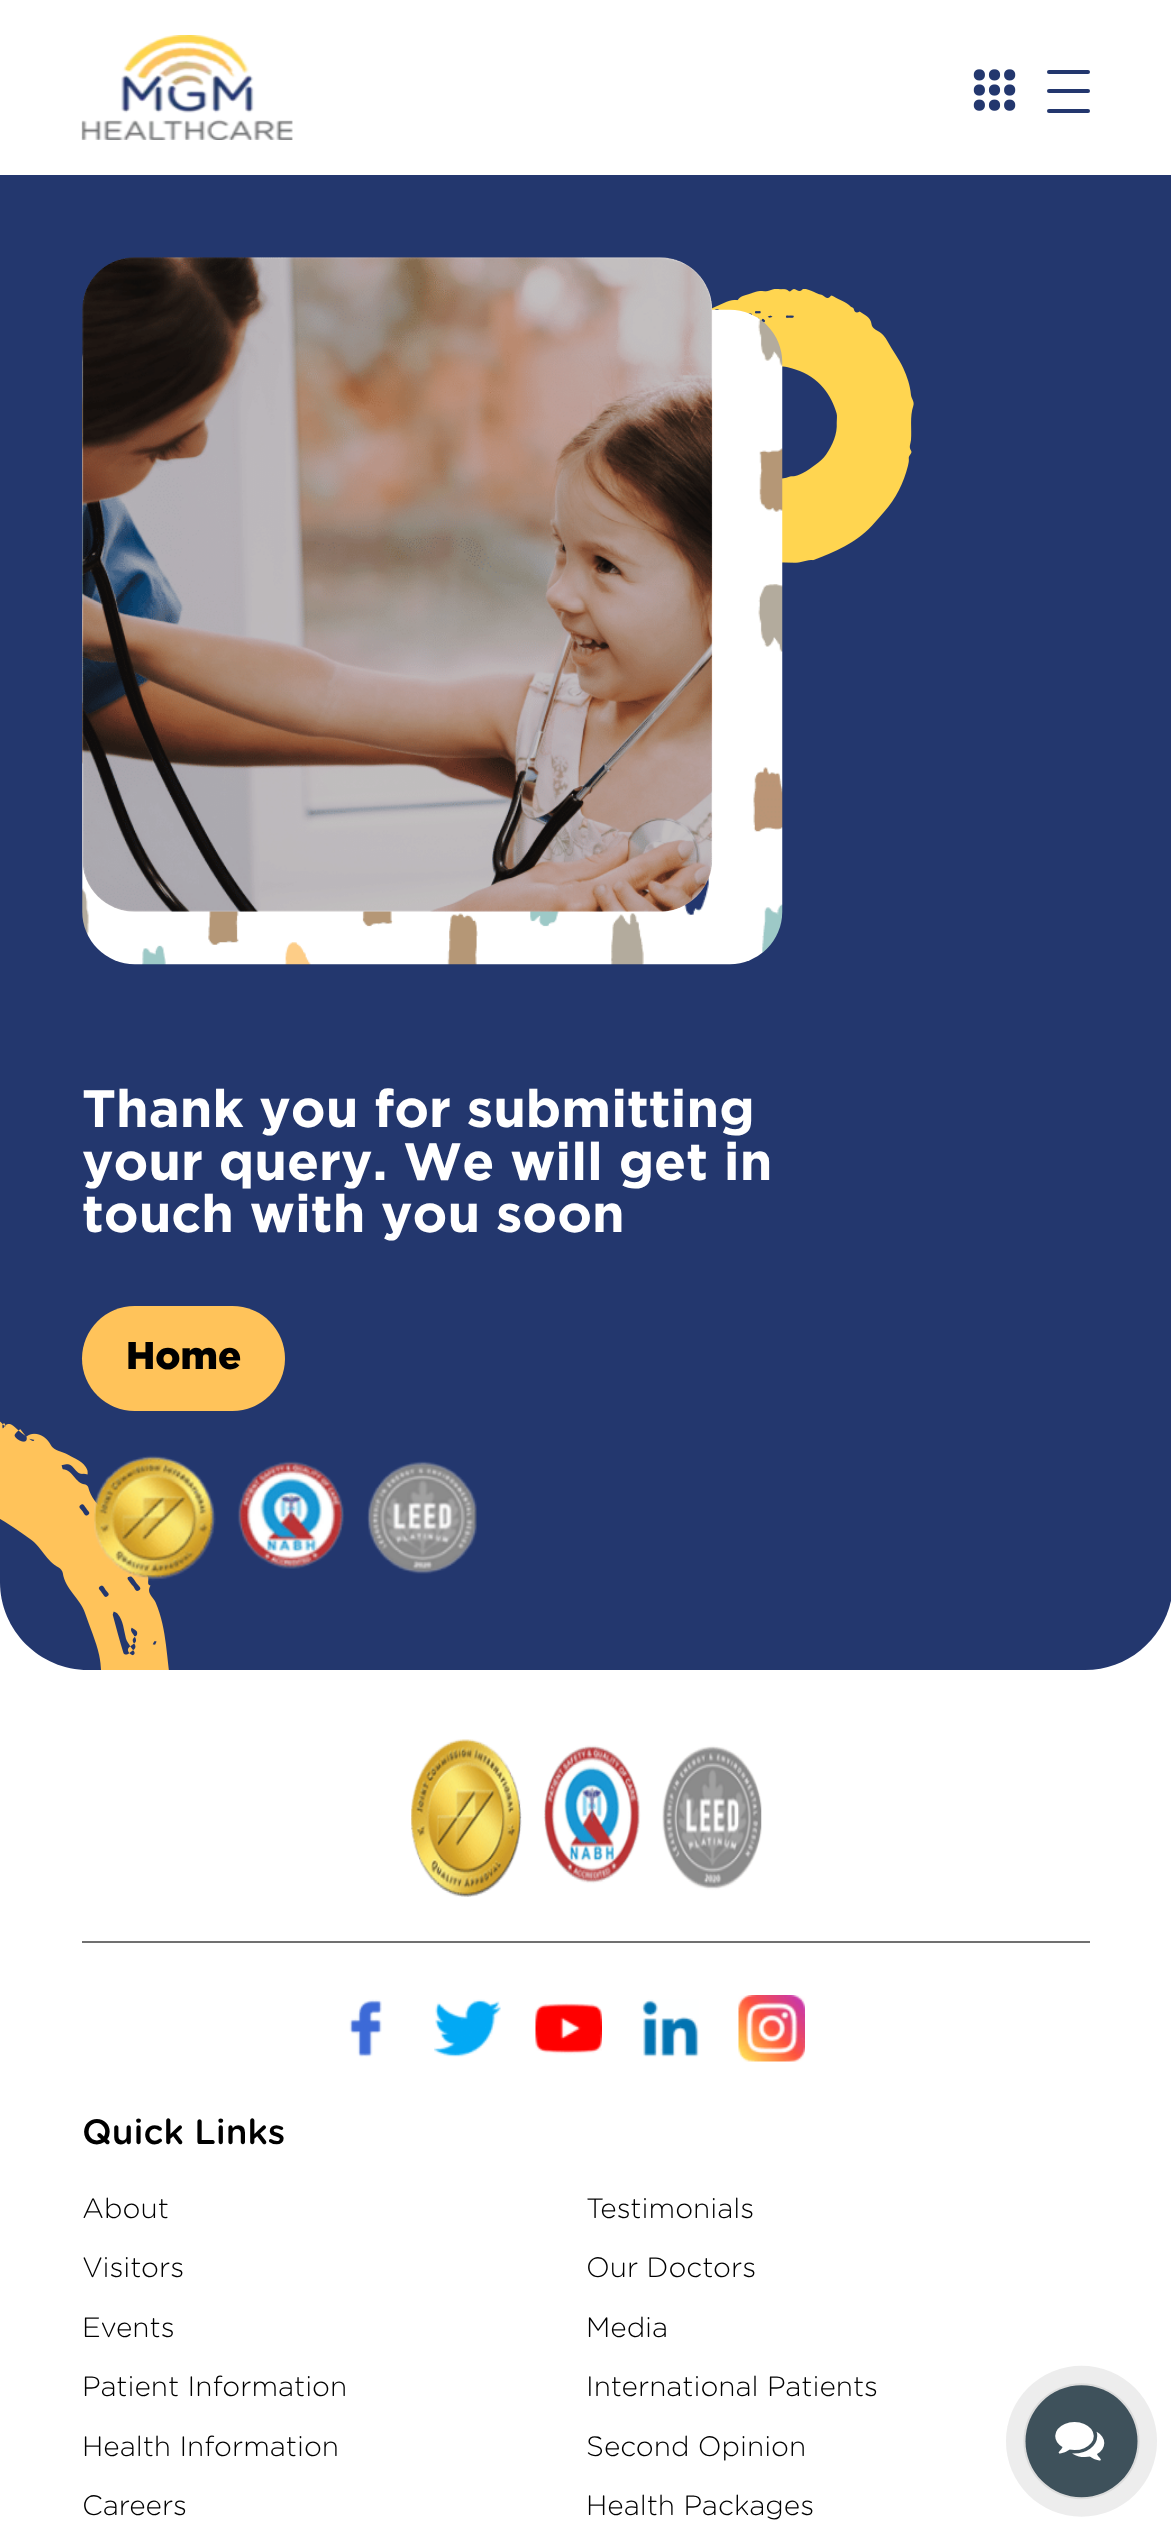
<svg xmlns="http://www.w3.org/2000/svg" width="1171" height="2535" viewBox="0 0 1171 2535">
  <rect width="100%" height="100%" fill="rgb(255,255,255)"/>
  <path d="M0 170H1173V1582C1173 1630.5 1133.5 1670 1085 1670H88C39.5 1670 0 1630.5 0 1582Z" fill="rgb(35,55,110)"/>
  <rect x="0" y="170" width="1171" height="5" fill="rgb(255,255,255)"/>
  <image x="81" y="35" width="212" height="105" href="pic1.png"/>
  <image x="973" y="69" width="43" height="42" href="pic2.png"/>
  <rect x="1047" y="70" width="43" height="4" rx="2" fill="rgb(35,55,110)"/>
  <rect x="1047" y="89" width="43" height="4" rx="2" fill="rgb(35,55,110)"/>
  <rect x="1047" y="109" width="43" height="4" rx="2" fill="rgb(35,55,110)"/>
  <image x="712" y="289" width="202" height="274" href="pic4.png"/>
  <image x="82" y="309" width="701" height="656" href="pic5.png"/>
  <image x="82" y="257" width="631" height="655" href="pic3.png"/>
  <g font-family="Gotham" font-size="52.5" font-weight="bold" fill="rgb(255,255,255)">
    <text>
      <tspan x="82" y="1127">Thank you for submitting</tspan>
      <tspan x="82" y="1180">your query. We will get in</tspan>
      <tspan x="82" y="1232">touch with you soon</tspan>
    </text>
  </g>
  <rect x="82" y="1306" width="203" height="105" rx="52.5" fill="rgb(255,195,90)"/>
  <text x="126" y="1369" font-family="Gotham" font-size="38.5" font-weight="900" fill="rgb(0,0,0)">Home</text>
  <image x="0" y="1421" width="169" height="249" href="pic7.png"/>
  <image x="94" y="1455" width="383" height="126" href="pic6.png"/>
  <rect x="82" y="1941" width="1008" height="2" fill="rgb(112,112,112)"/>
  <image x="411" y="1739" width="351" height="158" href="pic8.png"/>
  <image x="349" y="1999" width="33" height="58" href="pic9.png"/>
  <image x="434" y="1999" width="67" height="58" href="pic10.png"/>
  <image x="535" y="2003" width="67" height="52" href="pic11.png"/>
  <image x="641" y="1999" width="58" height="58" href="pic12.png"/>
  <image x="738" y="1995" width="67" height="67" href="pic13.png"/>
  <text x="82" y="2144" font-family="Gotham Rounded" font-size="35" font-weight="500" fill="rgb(0,0,0)">Quick Links</text>
  <g font-family="Gotham Rounded" font-size="28" font-weight="300" fill="rgb(0,0,0)">
    <text x="82" y="2218">About</text>
    <text x="586" y="2218">Testimonials</text>
    <text x="82" y="2277">Visitors</text>
    <text x="586" y="2277">Our Doctors</text>
    <text x="82" y="2337">Events</text>
    <text x="586" y="2337">Media</text>
    <text x="82" y="2396">Patient Information</text>
    <text x="586" y="2396">International Patients</text>
    <text x="82" y="2456">Health Information</text>
    <text x="586" y="2456">Second Opinion</text>
    <text x="82" y="2515">Careers</text>
    <text x="586" y="2515">Health Packages</text>
  </g>
  <image x="1006" y="2365" width="151" height="152" href="pic14.png"/>
</svg>
